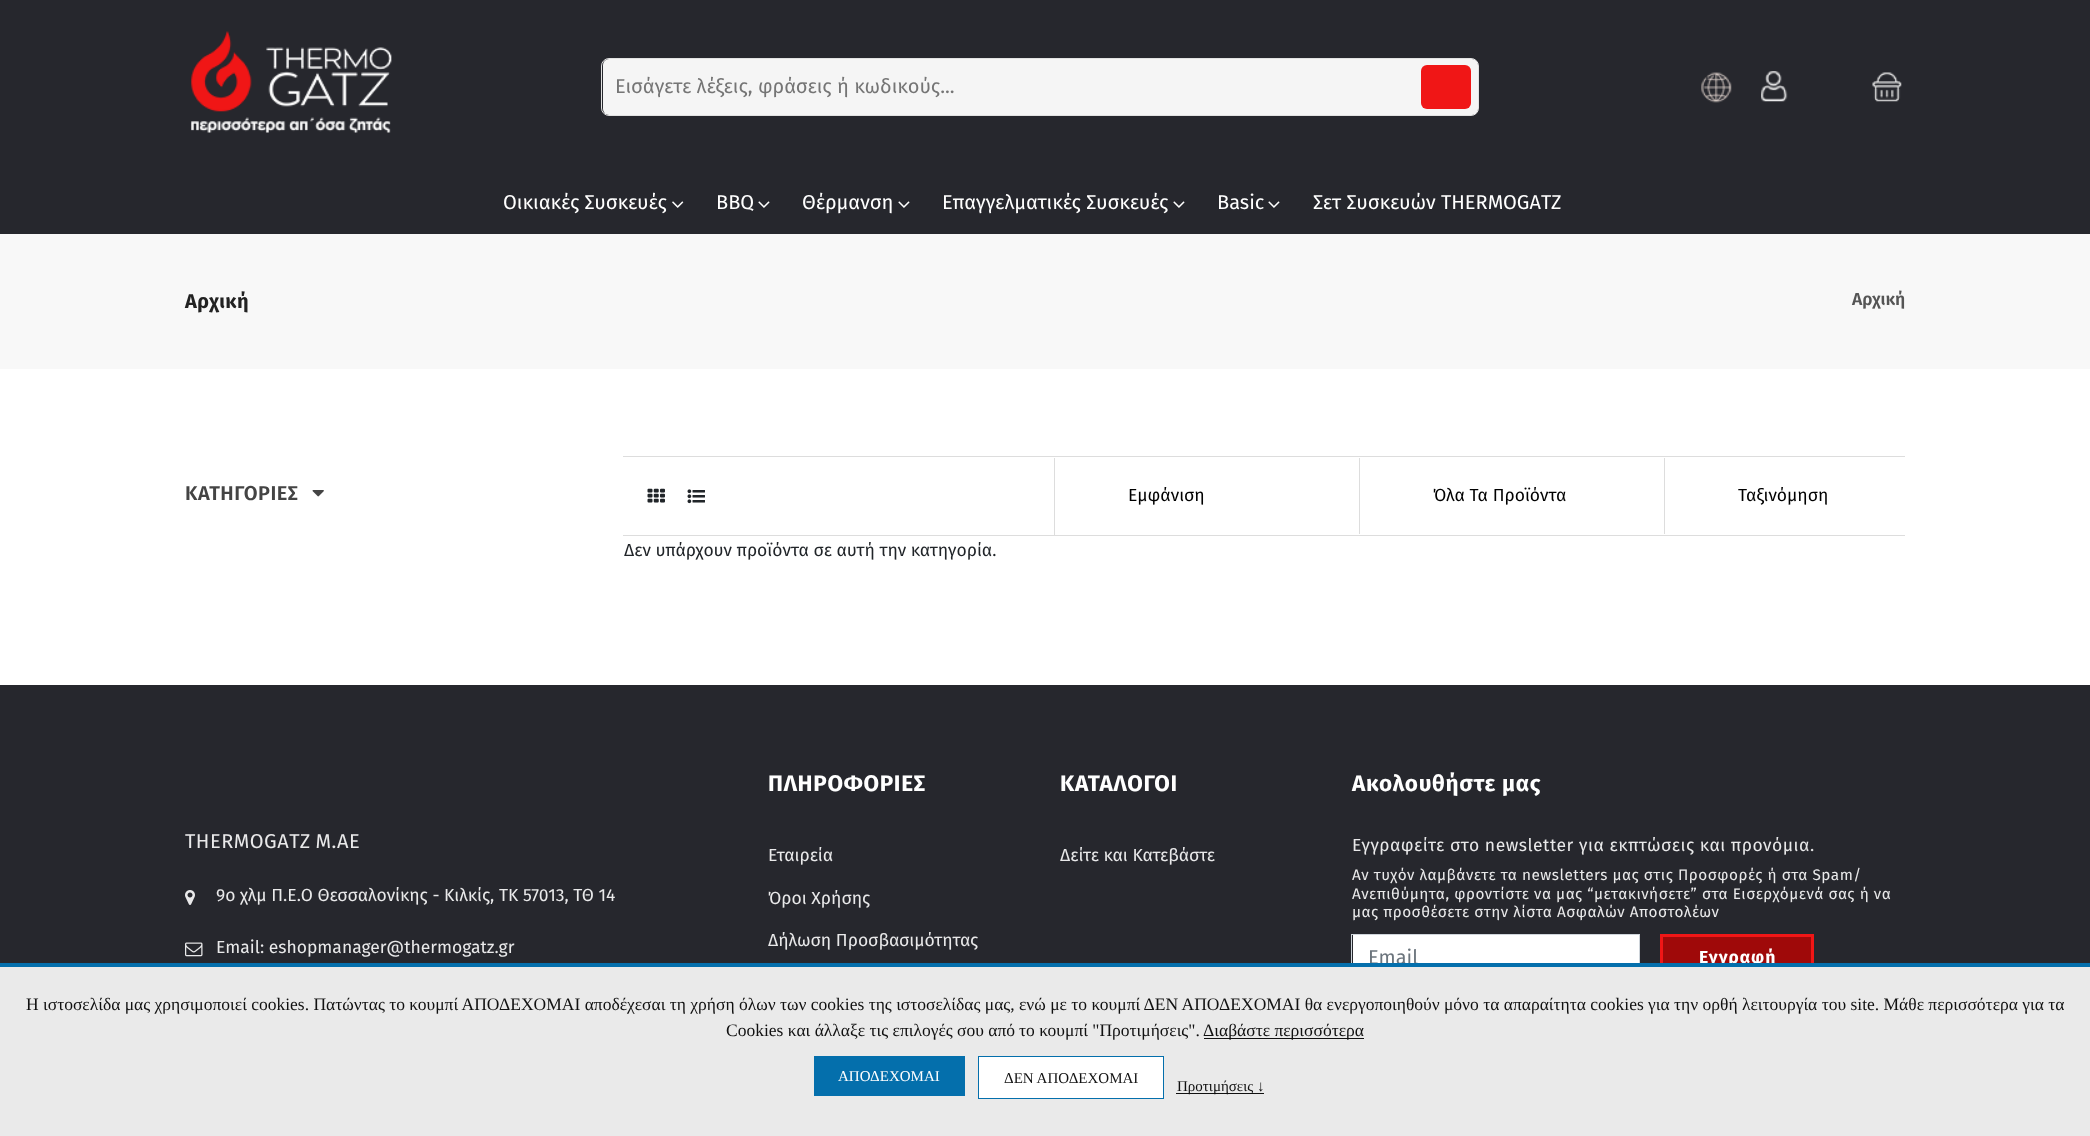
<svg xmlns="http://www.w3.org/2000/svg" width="2090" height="1136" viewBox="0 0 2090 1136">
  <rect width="100%" height="100%" fill="rgb(255,255,255)"/>
  <rect x="0" y="0" width="2090" height="234" fill="rgb(38,39,45)"/>
  <image x="191" y="31" width="201" height="102" href="pic1.png"/>
  <rect x="601.5" y="58.5" width="877" height="57" rx="7.5" fill="none" stroke="rgb(226,226,226)"/>
  <rect x="603" y="59" width="875" height="56" rx="6" fill="rgb(245,245,245)"/>
  <text x="615" y="93" font-family="Fira Sans" font-size="20" fill="rgb(117,117,117)">Εισάγετε λέξεις, φράσεις ή κωδικούς...</text>
  <rect x="1421" y="65" width="50" height="44" rx="6" fill="rgb(240,22,22)"/>
  <image x="1701" y="72" width="31" height="31" href="pic2.png"/>
  <image x="1761" y="71" width="27" height="31" href="pic3.png"/>
  <image x="1872" y="72" width="30" height="30" href="pic4.png"/>
  <text x="503" y="209" font-family="Fira Sans" font-size="20" fill="rgb(255,255,255)">Οικιακές Συσκευές</text>
  <image x="672" y="201" width="12" height="7" href="pic5.png"/>
  <text x="716" y="209" font-family="Fira Sans" font-size="20" fill="rgb(255,255,255)">BBQ</text>
  <image x="758" y="201" width="12" height="7" href="pic6.png"/>
  <text x="802" y="209" font-family="Fira Sans" font-size="20" fill="rgb(255,255,255)">Θέρμανση</text>
  <image x="898" y="201" width="12" height="7" href="pic6.png"/>
  <text x="942" y="209" font-family="Fira Sans" font-size="20" fill="rgb(255,255,255)">Επαγγελματικές Συσκευές</text>
  <image x="1173" y="201" width="12" height="7" href="pic6.png"/>
  <text x="1217" y="209" font-family="Fira Sans" font-size="20" fill="rgb(255,255,255)">Basic</text>
  <image x="1268" y="201" width="12" height="7" href="pic6.png"/>
  <text x="1313" y="209" font-family="Fira Sans" font-size="20" fill="rgb(255,255,255)">Σετ Συσκευών THERMOGATZ</text>
  <rect x="0" y="234" width="2090" height="135" fill="rgb(248,248,248)"/>
  <text x="185" y="308" font-family="Fira Sans" font-size="20" font-weight="bold" letter-spacing="0.5" fill="rgb(34,34,34)">Αρχική</text>
  <text x="1852" y="305" font-family="Fira Sans" font-size="17.5" font-weight="600" fill="rgb(85,85,85)">Αρχική</text>
  <text x="185" y="500" font-family="Fira Sans" font-size="20" font-weight="600" letter-spacing="0.5" fill="rgb(68,68,68)">ΚΑΤΗΓΟΡΙΕΣ</text>
  <image x="312" y="490" width="12" height="7" href="pic7.png"/>
  <rect x="623" y="456" width="1282" height="1" fill="rgb(221,221,221)"/>
  <rect x="623" y="535" width="1282" height="1" fill="rgb(221,221,221)"/>
  <image x="647" y="488" width="18" height="15" href="pic8.png"/>
  <image x="687" y="489" width="18" height="15" href="pic9.png"/>
  <rect x="1054" y="458" width="1" height="77" fill="rgb(221,221,221)"/>
  <rect x="1359" y="458" width="1" height="76" fill="rgb(221,221,221)"/>
  <text x="1128" y="501" font-family="Fira Sans" font-size="17.5" fill="rgb(0,0,0)">Εμφάνιση</text>
  <rect x="1664" y="458" width="1" height="76" fill="rgb(221,221,221)"/>
  <g font-family="Fira Sans" font-size="17.5" fill="rgb(0,0,0)">
    <text x="1433" y="501">Όλα Τα Προϊόντα</text>
    <text x="1738" y="501">Ταξινόμηση</text>
  </g>
  <text x="624" y="556" font-family="Fira Sans" font-size="17.5" fill="rgb(33,37,41)">Δεν υπάρχουν προϊόντα σε αυτή την κατηγορία.</text>
  <rect x="0" y="685" width="2090" height="278" fill="rgb(38,39,45)"/>
  <text x="768" y="791" font-family="Fira Sans" font-size="22.5" font-weight="bold" letter-spacing="0.7" fill="rgb(255,255,255)">ΠΛΗΡΟΦΟΡΙΕΣ</text>
  <g font-family="Fira Sans" font-size="17.5" fill="rgb(233,233,234)">
    <text x="768" y="861">Εταιρεία</text>
    <text x="768" y="904">Όροι Χρήσης</text>
    <text x="768" y="946">Δήλωση Προσβασιμότητας</text>
  </g>
  <text x="1060" y="791" font-family="Fira Sans" font-size="22.5" font-weight="bold" letter-spacing="0.7" fill="rgb(255,255,255)">ΚΑΤΑΛΟΓΟΙ</text>
  <text x="1060" y="861" font-family="Fira Sans" font-size="17.5" fill="rgb(233,233,234)">Δείτε και Κατεβάστε</text>
  <text x="1352" y="791" font-family="Fira Sans" font-size="22.5" font-weight="bold" letter-spacing="0.7" fill="rgb(255,255,255)">Ακολουθήστε μας</text>
  <text x="1352" y="851" font-family="Fira Sans" font-size="17.5" letter-spacing="0.53" fill="rgb(233,233,234)">Εγγραφείτε στο newsletter για εκπτώσεις και προνόμια.</text>
  <g font-family="Fira Sans" font-size="15.3" letter-spacing="0.53" fill="rgb(233,233,234)">
    <text>
      <tspan x="1352" y="880">Αν τυχόν λαμβάνετε τα newsletters μας στις Προσφορές ή στα Spam/</tspan>
      <tspan x="1352" y="899">Ανεπιθύμητα, φροντίστε να μας “μετακινήσετε” στα Εισερχόμενά σας ή να</tspan>
      <tspan x="1352" y="917">μας προσθέσετε στην λίστα Ασφαλών Αποστολέων</tspan>
    </text>
  </g>
  <rect x="1353" y="935" width="286" height="28" fill="rgb(255,255,255)"/>
  <rect x="1351.5" y="934.5" width="288" height="46" fill="none" stroke="rgb(206,212,218)"/>
  <text x="1368" y="964" font-family="Fira Sans" font-size="20" fill="rgb(108,117,125)">Email</text>
  <rect x="1663" y="937" width="148" height="26" fill="rgb(159,9,9)"/>
  <rect x="1661.5" y="935.5" width="151" height="44" fill="none" stroke="rgb(240,22,22)" stroke-width="3"/>
  <text x="1699" y="963" font-family="Fira Sans" font-size="17.5" font-weight="bold" letter-spacing="1" fill="rgb(255,255,255)">Εγγραφή</text>
  <text x="185" y="848" word-spacing="-1" font-family="Fira Sans" font-size="20" letter-spacing="0.53" fill="rgb(233,233,234)">THERMOGATZ Μ.ΑΕ</text>
  <image x="185" y="890" width="10" height="15" href="pic10.png"/>
  <text x="216" y="901" font-family="Fira Sans" font-size="17.5" fill="rgb(233,233,234)">9o χλμ Π.Ε.Ο Θεσσαλονίκης - Κιλκίς, ΤΚ 57013, ΤΘ 14</text>
  <image x="185" y="942" width="18" height="15" href="pic11.png"/>
  <text x="216" y="953" font-family="Fira Sans" font-size="17.5" fill="rgb(233,233,234)">Email: eshopmanager@thermogatz.gr</text>
  <rect x="0" y="967" width="2090" height="169" fill="rgb(234,234,234)"/>
  <rect x="0" y="963" width="2090" height="4" fill="rgb(4,111,172)"/>
  <g font-family="Liberation Serif" font-size="17.5" fill="rgb(17,17,17)">
    <text x="26" y="1010">Η ιστοσελίδα μας χρησιμοποιεί cookies. Πατώντας το κουμπί ΑΠΟΔΕΧΟΜΑΙ αποδέχεσαι τη χρήση όλων των cookies της ιστοσελίδας μας, ενώ με το κουμπί ΔΕΝ ΑΠΟΔΕΧΟΜΑΙ θα ενεργοποιηθούν μόνο τα απαραίτητα cookies για την ορθή λειτουργία του site. Μάθε περισσότερα για τα</text>
    <text x="726" y="1036">Cookies και άλλαξε τις επιλογές σου από</text>
    <text x="1019" y="1036">το κουμπί "Προτιμήσεις".</text>
  </g>
  <rect x="1204" y="1038" width="160" height="1" fill="rgb(17,17,17)"/>
  <text x="1203" y="1036" font-family="Liberation Serif" font-size="17.5" fill="rgb(17,17,17)">Διαβάστε περισσότερα</text>
  <rect x="814" y="1056" width="151" height="40" fill="rgb(4,111,172)"/>
  <text x="838" y="1081" font-family="Liberation Serif" font-size="15" fill="rgb(255,255,255)">ΑΠΟΔΕΧΟΜΑΙ</text>
  <rect x="978.5" y="1056.5" width="185" height="42" fill="rgb(255,255,255)" stroke="rgb(4,111,172)"/>
  <text x="1004" y="1083" font-family="Liberation Serif" font-size="15" fill="rgb(17,17,17)">ΔΕΝ ΑΠΟΔΕΧΟΜΑΙ</text>
  <rect x="1176" y="1093" width="88" height="1" fill="rgb(17,17,17)"/>
  <text x="1177" y="1091" font-family="Liberation Serif" font-size="15" fill="rgb(17,17,17)">Προτιμήσεις ↓</text>
</svg>
